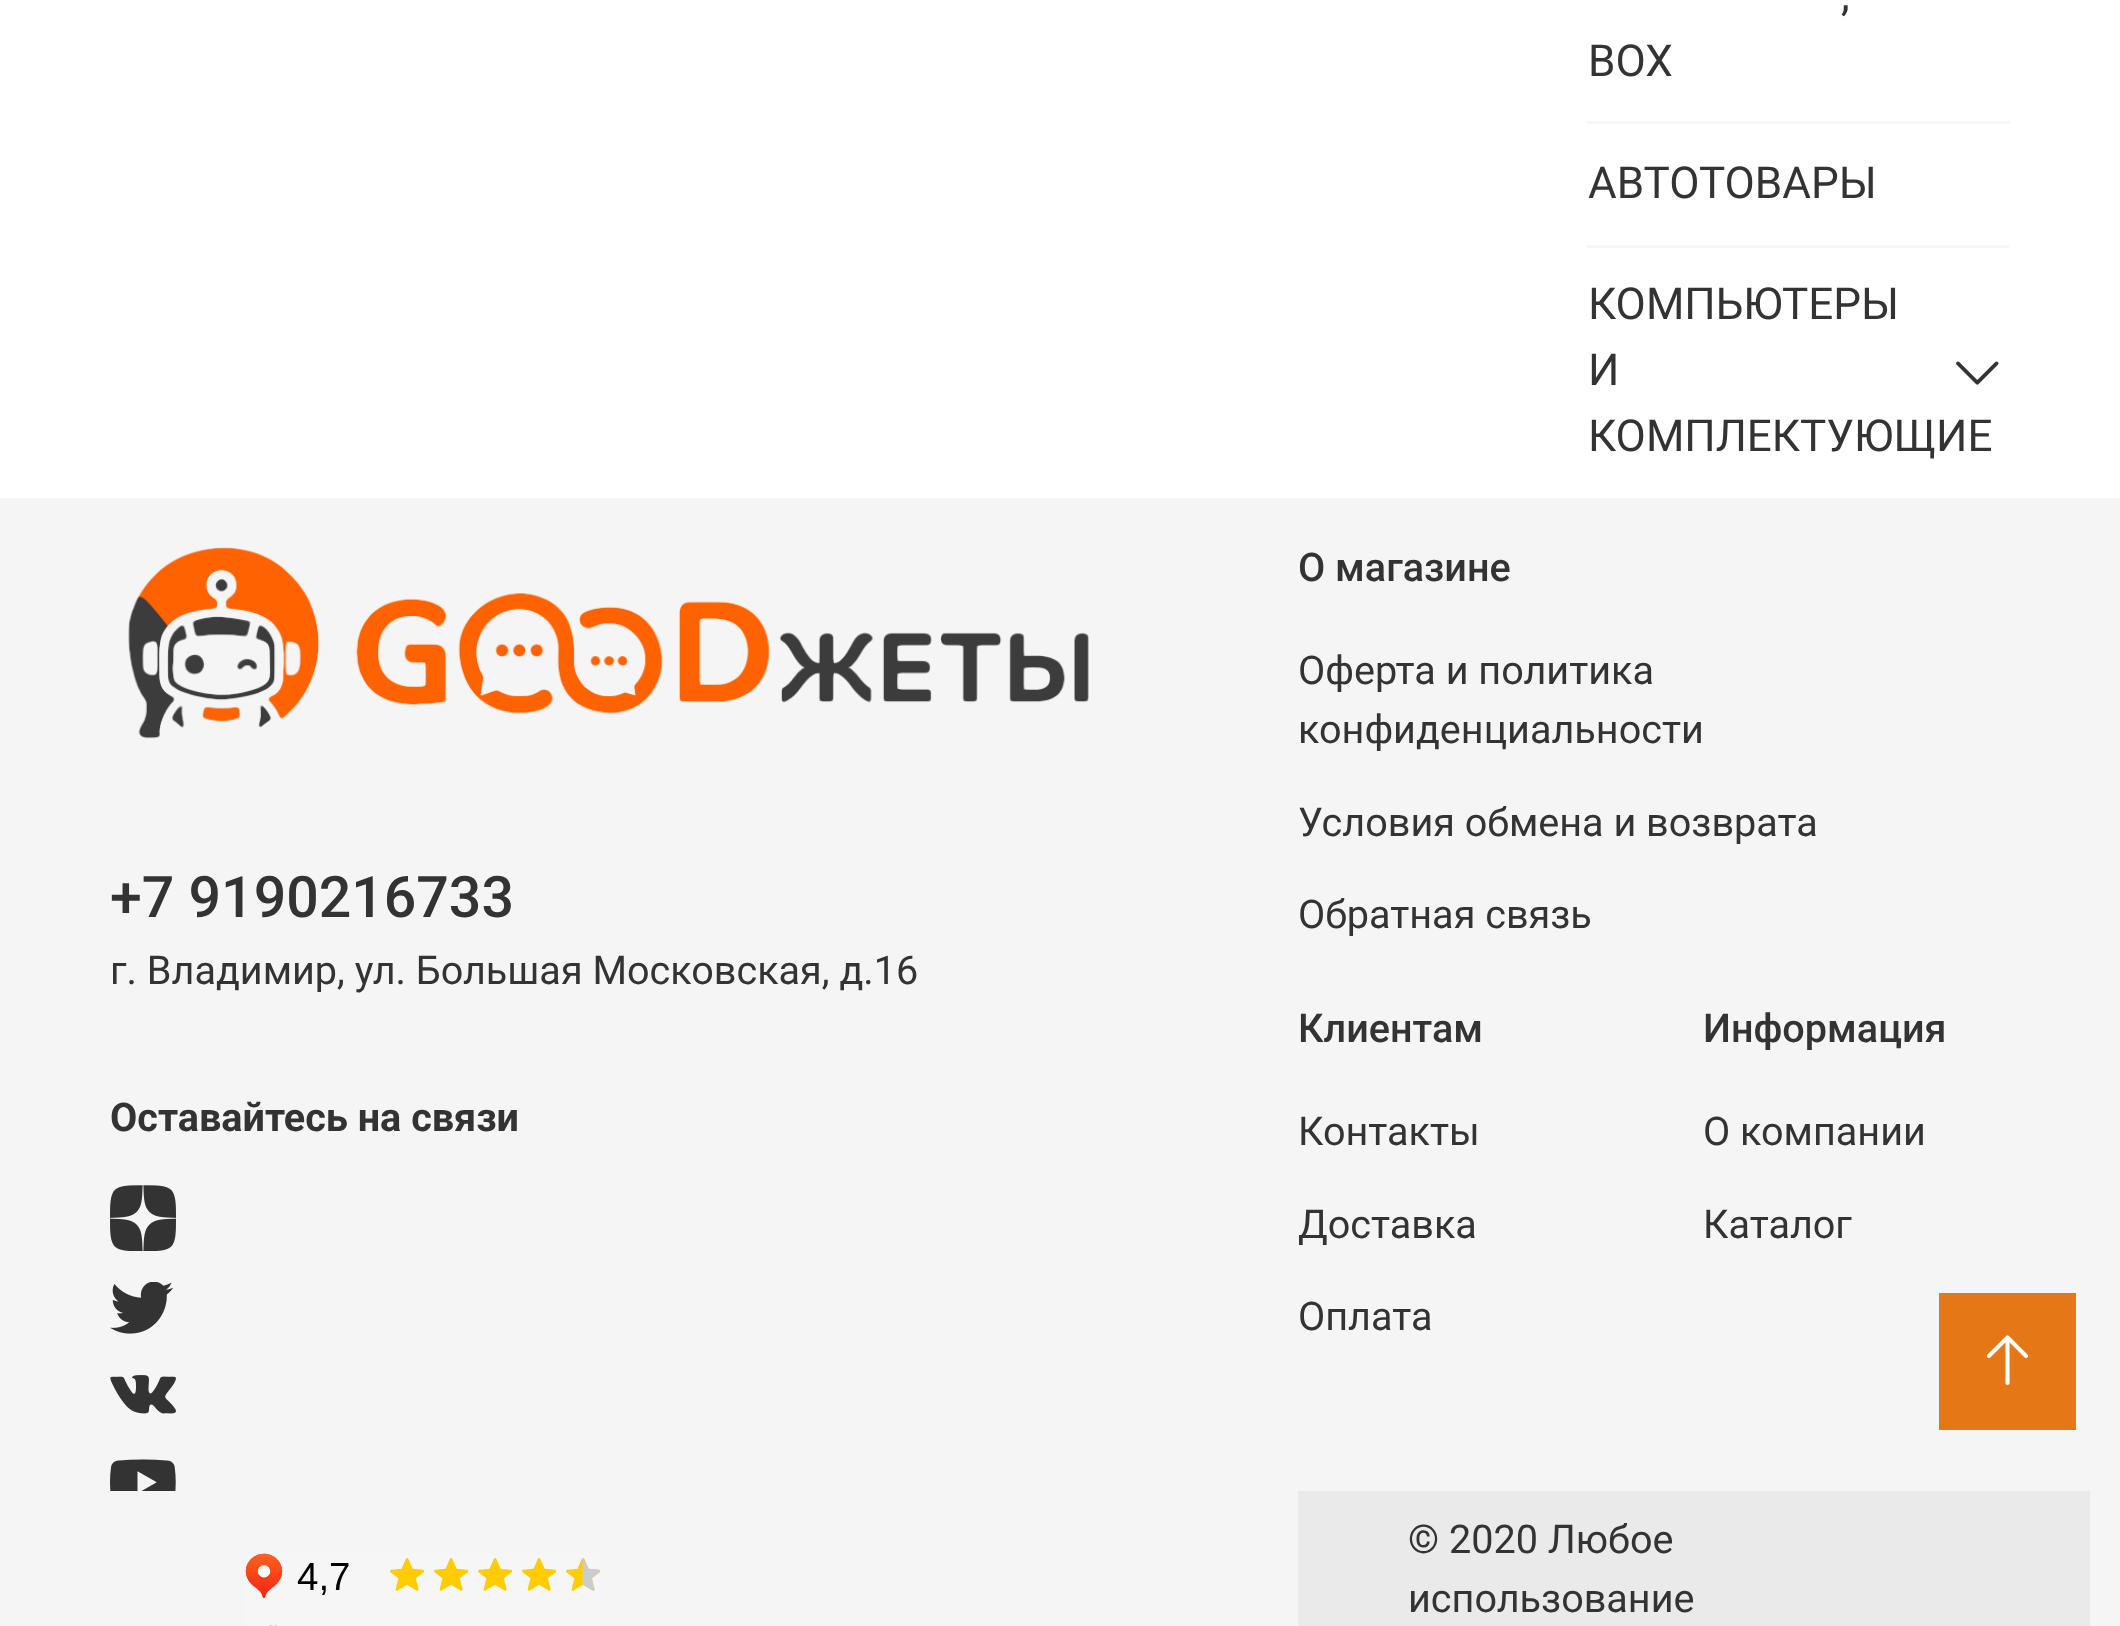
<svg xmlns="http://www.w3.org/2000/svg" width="2120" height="1626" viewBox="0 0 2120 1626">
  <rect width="100%" height="100%" fill="#ffffff"/>
  <rect x="1587" y="121" width="423" height="3" fill="#f7f7f7"/>
  <text x="1841" y="10" font-family="Roboto" font-size="44" fill="#333333">,</text>
  <text x="1588" y="76" font-family="Roboto" font-size="44" fill="#333333">BOX</text>
  <rect x="1587" y="245" width="423" height="3" fill="#f7f7f7"/>
  <text x="1588" y="198" font-family="Roboto" font-size="44" fill="#333333">АВТОТОВАРЫ</text>
  <text x="1588" y="319" font-family="Roboto" font-size="44" fill="#333333">КОМПЬЮТЕРЫ</text>
  <text x="1588" y="385" font-family="Roboto" font-size="44" fill="#333333">И</text>
  <text x="1588" y="451" font-family="Roboto" font-size="44" fill="#333333">КОМПЛЕКТУЮЩИЕ</text>
  <image x="1956" y="361" width="43" height="24" href="img1.png"/>
  <rect x="0" y="498" width="2120" height="1128" fill="#f5f5f6"/>
  <image x="110" y="539" width="990" height="231" href="img2.png"/>
  <text x="110" y="917" font-family="Roboto" font-size="57.25" font-weight="500" fill="#333333">+7 9190216733</text>
  <text x="110" y="984" font-family="Roboto" font-size="39.6" fill="#333333">г. Владимир, ул. Большая Московская, д.16</text>
  <text x="110" y="1131" font-family="Roboto" font-size="39.6" font-weight="bold" fill="#333333">Оставайтесь на связи</text>
  <image x="110" y="1185" width="66" height="66" href="img3.png"/>
  <image x="110" y="1282" width="63" height="52" href="img4.png"/>
  <image x="110" y="1375" width="66" height="39" href="img5.png"/>
  <image x="110" y="1459" width="66" height="32" href="img6.png"/>
  <text x="1298" y="581" font-family="Roboto" font-size="39.6" font-weight="500" fill="#333333">О магазине</text>
  <text x="1298" y="684" font-family="Roboto" font-size="39.6" fill="#333333">Оферта и политика</text>
  <text x="1298" y="743" font-family="Roboto" font-size="39.6" fill="#333333">конфиденциальности</text>
  <text x="1298" y="836" font-family="Roboto" font-size="39.6" fill="#333333">Условия обмена и возврата</text>
  <text x="1298" y="928" font-family="Roboto" font-size="39.6" fill="#333333">Обратная связь</text>
  <text x="1298" y="1042" font-family="Roboto" font-size="39.6" font-weight="500" fill="#333333">Клиентам</text>
  <text x="1298" y="1145" font-family="Roboto" font-size="39.6" fill="#333333">Контакты</text>
  <text x="1298" y="1238" font-family="Roboto" font-size="39.6" fill="#333333">Доставка</text>
  <text x="1298" y="1330" font-family="Roboto" font-size="39.6" fill="#333333">Оплата</text>
  <text x="1703" y="1042" font-family="Roboto" font-size="39.6" font-weight="500" fill="#333333">Информация</text>
  <text x="1703" y="1145" font-family="Roboto" font-size="39.6" fill="#333333">О компании</text>
  <text x="1703" y="1238" font-family="Roboto" font-size="39.6" fill="#333333">Каталог</text>
  <image x="245" y="1553" width="356" height="73" href="img7.png"/>
  <rect x="1298" y="1491" width="792" height="135" fill="#eaeaea"/>
  <text x="1408" y="1553" font-family="Roboto" font-size="39.6" fill="#333333">© 2020 Любое</text>
  <text x="1408" y="1612" font-family="Roboto" font-size="39.6" fill="#333333">использование</text>
  <rect x="1939" y="1293" width="137" height="137" fill="#e57716"/>
  <image x="1986" y="1335" width="43" height="50" href="img8.png"/>
</svg>
